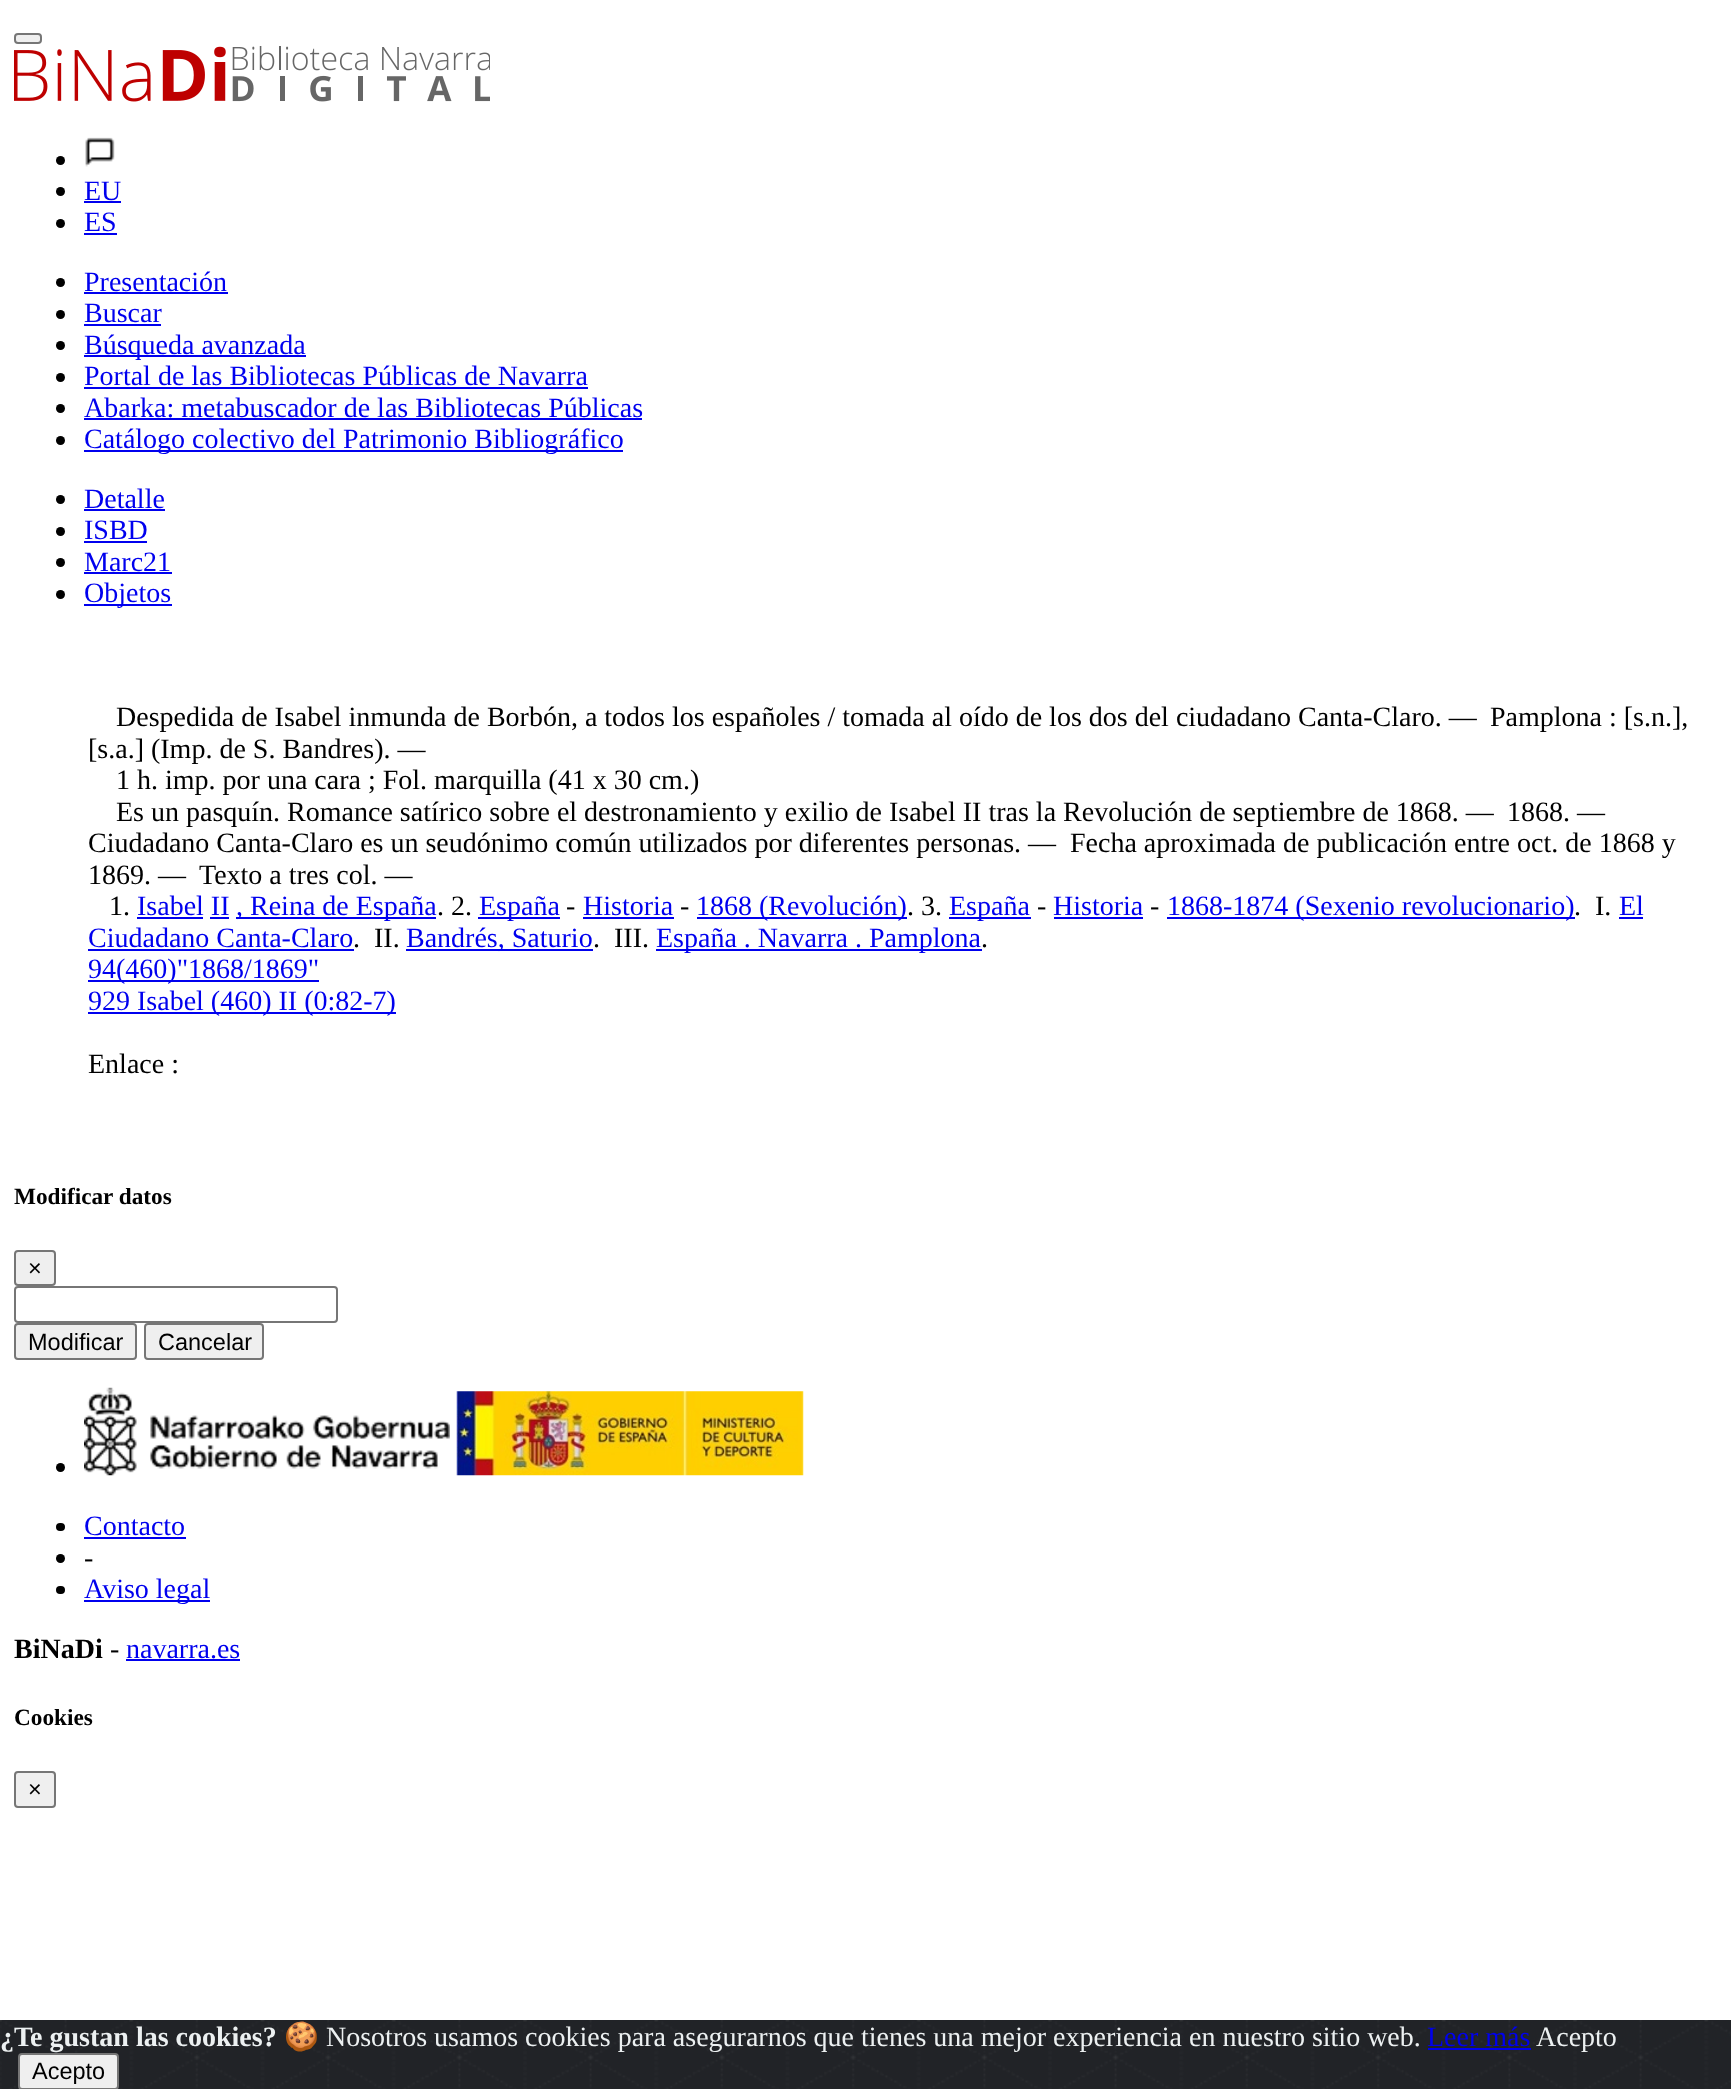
<svg xmlns="http://www.w3.org/2000/svg" width="1731" height="2089" viewBox="0 0 1731 2089">
  <rect width="100%" height="100%" fill="#ffffff"/>
  <rect x="15" y="34" width="26" height="9" rx="3" fill="#efefef" stroke="#767676" stroke-width="2"/>
  <image x="14" y="46" width="476" height="56" href="img1.png"/>
  <circle cx="60.5" cy="160.5" r="4.5" fill="#000000"/>
  <image x="85" y="137" width="30" height="30" href="img2.png"/>
  <circle cx="60.5" cy="191.5" r="4.5" fill="#000000"/>
  <text x="84" y="200" font-family="Liberation Serif" font-size="28" fill="#0000ee">EU</text>
  <rect x="84" y="201" width="37" height="2" fill="#0000ee"/>
  <circle cx="60.5" cy="223.5" r="4.5" fill="#000000"/>
  <text x="84" y="231" font-family="Liberation Serif" font-size="28" fill="#0000ee">ES</text>
  <rect x="84" y="233" width="33" height="2" fill="#0000ee"/>
  <circle cx="60.5" cy="282.5" r="4.5" fill="#000000"/>
  <text x="84" y="291" font-family="Liberation Serif" font-size="28" fill="#0000ee">Presentación</text>
  <rect x="84" y="292" width="144" height="2" fill="#0000ee"/>
  <circle cx="60.5" cy="314.5" r="4.5" fill="#000000"/>
  <text x="84" y="322" font-family="Liberation Serif" font-size="28" fill="#0000ee">Buscar</text>
  <rect x="84" y="324" width="77" height="2" fill="#0000ee"/>
  <circle cx="60.5" cy="345.5" r="4.5" fill="#000000"/>
  <rect x="84" y="355" width="222" height="2" fill="#0000ee"/>
  <text x="84" y="354" font-family="Liberation Serif" font-size="28" fill="#0000ee">Búsqueda avanzada</text>
  <circle cx="60.5" cy="377.5" r="4.5" fill="#000000"/>
  <text x="84" y="385" font-family="Liberation Serif" font-size="28" fill="#0000ee">Portal de las Bibliotecas Públicas de Navarra</text>
  <rect x="84" y="387" width="504" height="2" fill="#0000ee"/>
  <circle cx="60.5" cy="408.5" r="4.5" fill="#000000"/>
  <text x="84" y="417" font-family="Liberation Serif" font-size="28" fill="#0000ee">Abarka: metabuscador de las Bibliotecas Públicas</text>
  <rect x="84" y="418" width="558" height="2" fill="#0000ee"/>
  <circle cx="60.5" cy="440.5" r="4.5" fill="#000000"/>
  <rect x="84" y="450" width="539" height="2" fill="#0000ee"/>
  <text x="84" y="448" font-family="Liberation Serif" font-size="28" fill="#0000ee">Catálogo colectivo del Patrimonio Bibliográfico</text>
  <circle cx="60.5" cy="499.5" r="4.5" fill="#000000"/>
  <text x="84" y="508" font-family="Liberation Serif" font-size="28" fill="#0000ee">Detalle</text>
  <rect x="84" y="509" width="81" height="2" fill="#0000ee"/>
  <circle cx="60.5" cy="531.5" r="4.5" fill="#000000"/>
  <text x="84" y="539" font-family="Liberation Serif" font-size="28" fill="#0000ee">ISBD</text>
  <rect x="84" y="541" width="63" height="2" fill="#0000ee"/>
  <circle cx="60.5" cy="562.5" r="4.5" fill="#000000"/>
  <text x="84" y="571" font-family="Liberation Serif" font-size="28" fill="#0000ee">Marc21</text>
  <rect x="84" y="572" width="88" height="2" fill="#0000ee"/>
  <circle cx="60.5" cy="594.5" r="4.5" fill="#000000"/>
  <rect x="84" y="604" width="88" height="2" fill="#0000ee"/>
  <text x="84" y="602" font-family="Liberation Serif" font-size="28" fill="#0000ee">Objetos</text>
  <text x="116" y="726" font-family="Liberation Serif" font-size="28" fill="#000000">Despedida de Isabel inmunda de Borbón, a todos los españoles / tomada al oído de los dos del ciudadano Canta-Claro. —</text>
  <text x="1490" y="726" font-family="Liberation Serif" font-size="28" fill="#000000">Pamplona : [s.n.],</text>
  <text x="88" y="758" font-family="Liberation Serif" font-size="28" fill="#000000">[s.a.] (Imp. de S. Bandres). —</text>
  <text x="116" y="789" font-family="Liberation Serif" font-size="28" fill="#000000">1 h. imp. por una cara ; Fol. marquilla (41 x 30 cm.)</text>
  <text x="116" y="821" font-family="Liberation Serif" font-size="28" fill="#000000">Es un pasquín. Romance satírico sobre el destronamiento y exilio de Isabel II tras la Revolución de septiembre de 1868. —</text>
  <text x="1507" y="821" font-family="Liberation Serif" font-size="28" fill="#000000">1868. —</text>
  <text x="88" y="852" font-family="Liberation Serif" font-size="28" fill="#000000">Ciudadano Canta-Claro es un seudónimo común utilizados por diferentes personas. —</text>
  <text x="1070" y="852" font-family="Liberation Serif" font-size="28" fill="#000000">Fecha aproximada de publicación entre oct. de 1868 y</text>
  <text x="88" y="884" font-family="Liberation Serif" font-size="28" fill="#000000">1869. —</text>
  <text x="199" y="884" font-family="Liberation Serif" font-size="28" fill="#000000">Texto a tres col. —</text>
  <text x="109" y="915" font-family="Liberation Serif" font-size="28" fill="#000000">1.</text>
  <text x="137" y="915" font-family="Liberation Serif" font-size="28" fill="#0000ee">Isabel II</text>
  <rect x="137" y="917" width="66" height="2" fill="#0000ee"/>
  <rect x="236" y="917" width="200" height="2" fill="#0000ee"/>
  <text x="236" y="915" font-family="Liberation Serif" font-size="28" fill="#0000ee">, Reina de España</text>
  <text x="437" y="915" font-family="Liberation Serif" font-size="28" fill="#000000">. 2.</text>
  <rect x="478" y="917" width="82" height="2" fill="#0000ee"/>
  <text x="479" y="915" font-family="Liberation Serif" font-size="28" fill="#0000ee">España</text>
  <text x="566" y="915" font-family="Liberation Serif" font-size="28" fill="#000000">-</text>
  <text x="583" y="915" font-family="Liberation Serif" font-size="28" fill="#0000ee">Historia</text>
  <rect x="583" y="917" width="91" height="2" fill="#0000ee"/>
  <text x="680" y="915" font-family="Liberation Serif" font-size="28" fill="#000000">-</text>
  <rect x="697" y="917" width="210" height="2" fill="#0000ee"/>
  <text x="696" y="915" font-family="Liberation Serif" font-size="28" fill="#0000ee">1868 (Revolución)</text>
  <text x="907" y="915" font-family="Liberation Serif" font-size="28" fill="#000000">. 3.</text>
  <rect x="949" y="917" width="82" height="2" fill="#0000ee"/>
  <text x="949" y="915" font-family="Liberation Serif" font-size="28" fill="#0000ee">España</text>
  <text x="1037" y="915" font-family="Liberation Serif" font-size="28" fill="#000000">-</text>
  <text x="1053" y="915" font-family="Liberation Serif" font-size="28" fill="#0000ee">Historia</text>
  <rect x="1054" y="917" width="89" height="2" fill="#0000ee"/>
  <text x="1150" y="915" font-family="Liberation Serif" font-size="28" fill="#000000">-</text>
  <rect x="1167" y="917" width="408" height="2" fill="#0000ee"/>
  <text x="1167" y="915" font-family="Liberation Serif" font-size="28" fill="#0000ee">1868-1874 (Sexenio revolucionario)</text>
  <text x="1574" y="915" font-family="Liberation Serif" font-size="28" fill="#000000" xml:space="preserve">.  I.</text>
  <text x="1619" y="915" font-family="Liberation Serif" font-size="28" fill="#0000ee">El</text>
  <rect x="1619" y="917" width="24" height="2" fill="#0000ee"/>
  <rect x="210" y="917" width="19" height="2" fill="#0000ee"/>
  <text x="88" y="947" font-family="Liberation Serif" font-size="28" fill="#0000ee">Ciudadano Canta-Claro</text>
  <rect x="88" y="949" width="266" height="2" fill="#0000ee"/>
  <text x="353" y="947" font-family="Liberation Serif" font-size="28" fill="#000000" xml:space="preserve">.  II.</text>
  <rect x="406" y="949" width="187" height="2" fill="#0000ee"/>
  <text x="406" y="947" font-family="Liberation Serif" font-size="28" fill="#0000ee">Bandrés, Saturio</text>
  <text x="593" y="947" font-family="Liberation Serif" font-size="28" fill="#000000" xml:space="preserve">.  III.</text>
  <rect x="656" y="949" width="326" height="2" fill="#0000ee"/>
  <text x="656" y="947" font-family="Liberation Serif" font-size="28" fill="#0000ee">España . Navarra . Pamplona</text>
  <text x="981" y="947" font-family="Liberation Serif" font-size="28" fill="#000000">.</text>
  <rect x="88" y="980" width="231" height="2" fill="#0000ee"/>
  <text x="88" y="978" font-family="Liberation Serif" font-size="28" fill="#0000ee">94(460)"1868/1869"</text>
  <rect x="88" y="1012" width="308" height="2" fill="#0000ee"/>
  <text x="88" y="1010" font-family="Liberation Serif" font-size="28" fill="#0000ee">929 Isabel (460) II (0:82-7)</text>
  <text x="88" y="1073" font-family="Liberation Serif" font-size="28" fill="#000000">Enlace :</text>
  <text x="14" y="1204" font-family="Liberation Serif" font-size="23.25" font-weight="bold" fill="#000000">Modificar datos</text>
  <rect x="15" y="1251" width="40" height="34" rx="3" fill="#efefef" stroke="#767676" stroke-width="2"/>
  <text x="28" y="1276" font-family="Liberation Sans" font-size="23.5" fill="#000000">×</text>
  <rect x="15" y="1287" width="322" height="35" rx="3" fill="none" stroke="#767676" stroke-width="2"/>
  <rect x="15" y="1324" width="121" height="35" rx="3" fill="#efefef" stroke="#767676" stroke-width="2"/>
  <text x="28" y="1350" font-family="Liberation Sans" font-size="23.5" fill="#000000">Modificar</text>
  <rect x="145" y="1324" width="118" height="35" rx="3" fill="#efefef" stroke="#767676" stroke-width="2"/>
  <text x="158" y="1350" font-family="Liberation Sans" font-size="23.5" fill="#000000">Cancelar</text>
  <circle cx="60.5" cy="1467.5" r="4.5" fill="#000000"/>
  <image x="84" y="1387" width="366" height="89" href="img3.png"/>
  <image x="456" y="1391" width="348" height="85" href="img4.png"/>
  <rect x="56" y="1523" width="9" height="8" rx="4" fill="#000000"/>
  <text x="84" y="1535" font-family="Liberation Serif" font-size="28" fill="#0000ee">Contacto</text>
  <rect x="84" y="1537" width="102" height="2" fill="#0000ee"/>
  <circle cx="60.5" cy="1558.5" r="4.5" fill="#000000"/>
  <text x="84" y="1567" font-family="Liberation Serif" font-size="28" fill="#000000">-</text>
  <rect x="56" y="1586" width="9" height="8" rx="4" fill="#000000"/>
  <rect x="84" y="1600" width="126" height="2" fill="#0000ee"/>
  <text x="84" y="1598" font-family="Liberation Serif" font-size="28" fill="#0000ee">Aviso legal</text>
  <text x="14" y="1658" font-family="Liberation Serif" font-size="28" font-weight="bold" fill="#000000">BiNaDi</text>
  <text x="110" y="1658" font-family="Liberation Serif" font-size="28" fill="#000000">-</text>
  <text x="126" y="1658" font-family="Liberation Serif" font-size="28" fill="#0000ee">navarra.es</text>
  <rect x="126" y="1659" width="114" height="2" fill="#0000ee"/>
  <text x="14" y="1725" font-family="Liberation Serif" font-size="23.25" font-weight="bold" fill="#000000">Cookies</text>
  <rect x="15" y="1772" width="40" height="35" rx="3" fill="#efefef" stroke="#767676" stroke-width="2"/>
  <text x="28" y="1797" font-family="Liberation Sans" font-size="23.5" fill="#000000">×</text>
  <image x="0" y="2020" width="1731" height="69" href="img5.png"/>
  <text x="0" y="2046" font-family="Liberation Serif" font-size="28" font-weight="bold" fill="#ecf0f1">¿Te gustan las cookies?</text>
  <text x="284" y="2046" font-family="Noto Color Emoji" font-size="28" fill="#ecf0f1">🍪</text>
  <text x="326" y="2046" font-family="Liberation Serif" font-size="28" fill="#ecf0f1">Nosotros usamos cookies para asegurarnos que tienes una mejor experiencia en nuestro sitio web.</text>
  <text x="1427" y="2046" font-family="Liberation Serif" font-size="28" fill="#0000ee">Leer más</text>
  <rect x="1428" y="2048" width="103" height="2" fill="#0000ee"/>
  <text x="1536" y="2046" font-family="Liberation Serif" font-size="28" fill="#ecf0f1">Acepto</text>
  <rect x="19" y="2054" width="99" height="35" rx="3" fill="#efefef" stroke="#767676" stroke-width="2"/>
  <text x="32" y="2079" font-family="Liberation Sans" font-size="23.5" fill="#000000">Acepto</text>
</svg>
